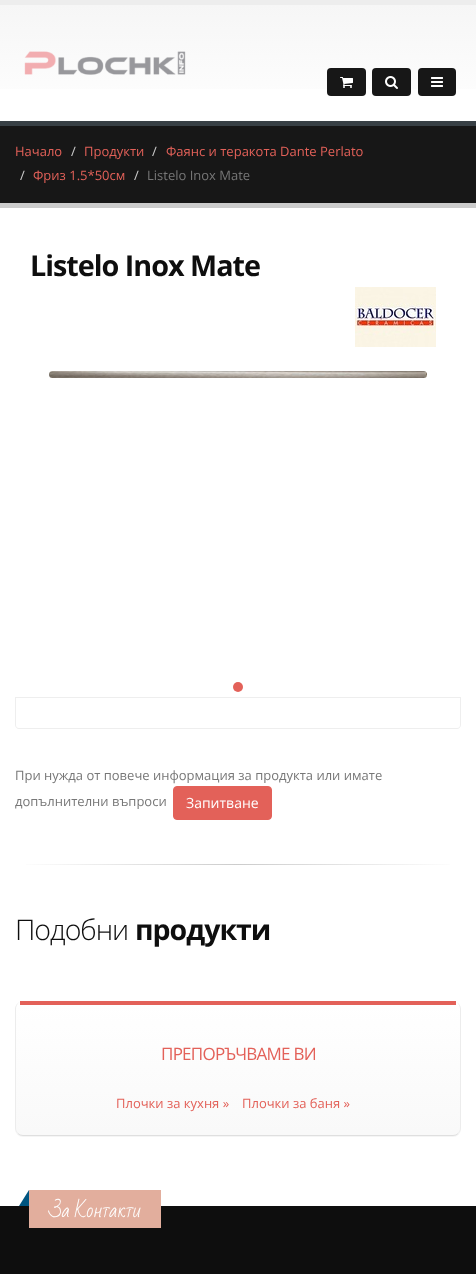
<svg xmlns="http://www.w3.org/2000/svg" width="476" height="1274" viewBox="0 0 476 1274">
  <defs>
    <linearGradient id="g1" gradientUnits="userSpaceOnUse" x1="238" y1="5" x2="238" y2="121"><stop offset="0" stop-color="#f6f6f6"/><stop offset="1" stop-color="#ffffff"/></linearGradient>
    <linearGradient id="g2" gradientUnits="userSpaceOnUse" x1="15" y1="865" x2="461" y2="865"><stop offset="0" stop-color="#ffffff"/><stop offset="0.5" stop-color="#cccccc"/><stop offset="1" stop-color="#ffffff"/></linearGradient>
    <filter id="blur1" x="-50%" y="-200%" width="200%" height="500%"><feGaussianBlur stdDeviation="0.5"/></filter>
    <clipPath id="clip1"><rect x="15" y="1001" width="446" height="135" rx="8"/></clipPath>
    <linearGradient id="g3" gradientUnits="userSpaceOnUse" x1="238" y1="1001" x2="238" y2="1135"><stop offset="0.01" stop-color="#ffffff"/><stop offset="0.98" stop-color="#f9f9f9"/></linearGradient>
  </defs>
  <rect width="100%" height="100%" fill="#ffffff"/>
  <rect x="0" y="5" width="476" height="84" fill="url(#g1)"/>
  <rect x="0" y="0" width="476" height="5" fill="#ededed"/>
  <image x="24" y="51" width="162" height="24" href="img1.png"/>
  <rect x="327" y="68" width="39" height="28" rx="4" fill="#171717"/>
  <image x="340" y="77" width="13" height="11" href="img2.png"/>
  <rect x="372" y="68" width="39" height="28" rx="4" fill="#171717"/>
  <image x="385" y="76" width="13" height="13" href="img3.png"/>
  <rect x="418" y="68" width="38" height="28" rx="4" fill="#171717"/>
  <image x="431" y="77" width="12" height="10" href="img4.png"/>
  <rect x="0" y="126" width="476" height="77" fill="#171717"/>
  <rect x="0" y="121" width="476" height="5" fill="#384045"/>
  <rect x="0" y="203" width="476" height="5" fill="#cccccc"/>
  <text x="15" y="156" font-family="Open Sans" font-size="13" fill="#e36159">Начало</text>
  <text x="71" y="156" font-family="Open Sans" font-size="13" fill="#cccccc">/</text>
  <text x="84" y="156" font-family="Open Sans" font-size="13" fill="#e36159">Продукти</text>
  <text x="152" y="156" font-family="Open Sans" font-size="13" fill="#cccccc">/</text>
  <text x="166" y="156" font-family="Open Sans" font-size="13" fill="#e36159">Фаянс и теракота Dante Perlato</text>
  <text x="20" y="180" font-family="Open Sans" font-size="13" fill="#cccccc">/</text>
  <text x="33" y="180" font-family="Open Sans" font-size="13" fill="#e36159">Фриз 1.5*50см</text>
  <text x="134" y="180" font-family="Open Sans" font-size="13" fill="#cccccc">/</text>
  <text x="147" y="180" font-family="Open Sans" font-size="13" fill="#777777">Listelo Inox Mate</text>
  <text x="30" y="276" font-family="Open Sans" font-size="28.75" font-weight="bold" letter-spacing="-1" fill="#0e0e0e">Listelo Inox Mate</text>
  <image x="355" y="287" width="81" height="60" href="img5.png"/>
  <image x="49" y="371" width="378" height="7" href="img6.png"/>
  <circle cx="238" cy="687" r="5" fill="#e36159"/>
  <rect x="15" y="697" width="446" height="1" fill="#eeeeee"/>
  <path d="M15 698H461V725C461 727 459 729 457 729H19C17 729 15 727 15 725ZM16 698H460V725C460 727 459 728 457 728H19C17 728 16 727 16 725Z" fill="#eeeeee" fill-rule="evenodd"/>
  <text x="15" y="780" font-family="Open Sans" font-size="13" fill="#777777">При нужда от повече информация за продукта или имате</text>
  <text x="15" y="806" font-family="Open Sans" font-size="13" fill="#777777">допълнителни въпроси</text>
  <rect x="173.5" y="786.5" width="98" height="33" rx="3.5" fill="#e36159" stroke="#e36159"/>
  <text x="186" y="808" font-family="Open Sans" font-size="14" fill="#ffffff">Запитване</text>
  <rect x="26" y="864" width="424" height="1" fill="url(#g2)"/>
  <text x="15" y="940" font-family="Open Sans" font-size="28.5" font-weight="300" letter-spacing="-1" fill="#0e0e0e">Подобни</text>
  <text x="135" y="940" font-family="Open Sans" font-size="28.5" font-weight="bold" letter-spacing="-1" fill="#0e0e0e">продукти</text>
  <rect x="15" y="1002" width="446" height="135" rx="8" fill="#000000" fill-opacity="0.04" filter="url(#blur1)"/>
  <g clip-path="url(#clip1)">
    <path d="M23 1001H453C457.5 1001 461 1004.5 461 1009V1135H15V1009C15 1004.5 18.5 1001 23 1001Z" fill="url(#g3)"/>
  </g>
  <path d="M461 1009C461 1005 457 1001 453 1001C457 1001 460 1005 460 1009V1128C460 1130 459 1132 458 1133V1134C460 1132 461 1130 461 1128Z" fill="#ececec"/>
  <path d="M23 1136H453C455 1136 457 1135 458 1134V1133C457 1134 455 1135 453 1135H23C21 1135 19 1134 18 1133V1134C19 1135 21 1136 23 1136Z" fill="#dfdfdf"/>
  <path d="M15 1009V1128C15 1130 16 1132 18 1134V1133C17 1132 16 1130 16 1128V1009C16 1005 19 1001 23 1001C19 1001 15 1005 15 1009Z" fill="#ececec"/>
  <rect x="20" y="1001" width="436" height="4" fill="#e36159"/>
  <text x="161" y="1060" font-family="Open Sans" font-size="17" letter-spacing="-0.75" fill="#e36159">ПРЕПОРЪЧВАМЕ ВИ</text>
  <text x="116" y="1108" font-family="Open Sans" font-size="13" fill="#e36159">Плочки за кухня »</text>
  <text x="242" y="1108" font-family="Open Sans" font-size="13" fill="#e36159">Плочки за баня »</text>
  <rect x="0" y="1206" width="476" height="68" fill="#0e0e0e"/>
  <rect x="29" y="1190" width="132" height="38" fill="#e2ae9d"/>
  <path d="M29 1190V1206H19Z" fill="#005580"/>
  <text x="49" y="1217" font-family="Bad Script" font-size="18.75" fill="#ffffff">За Контакти</text>
</svg>
